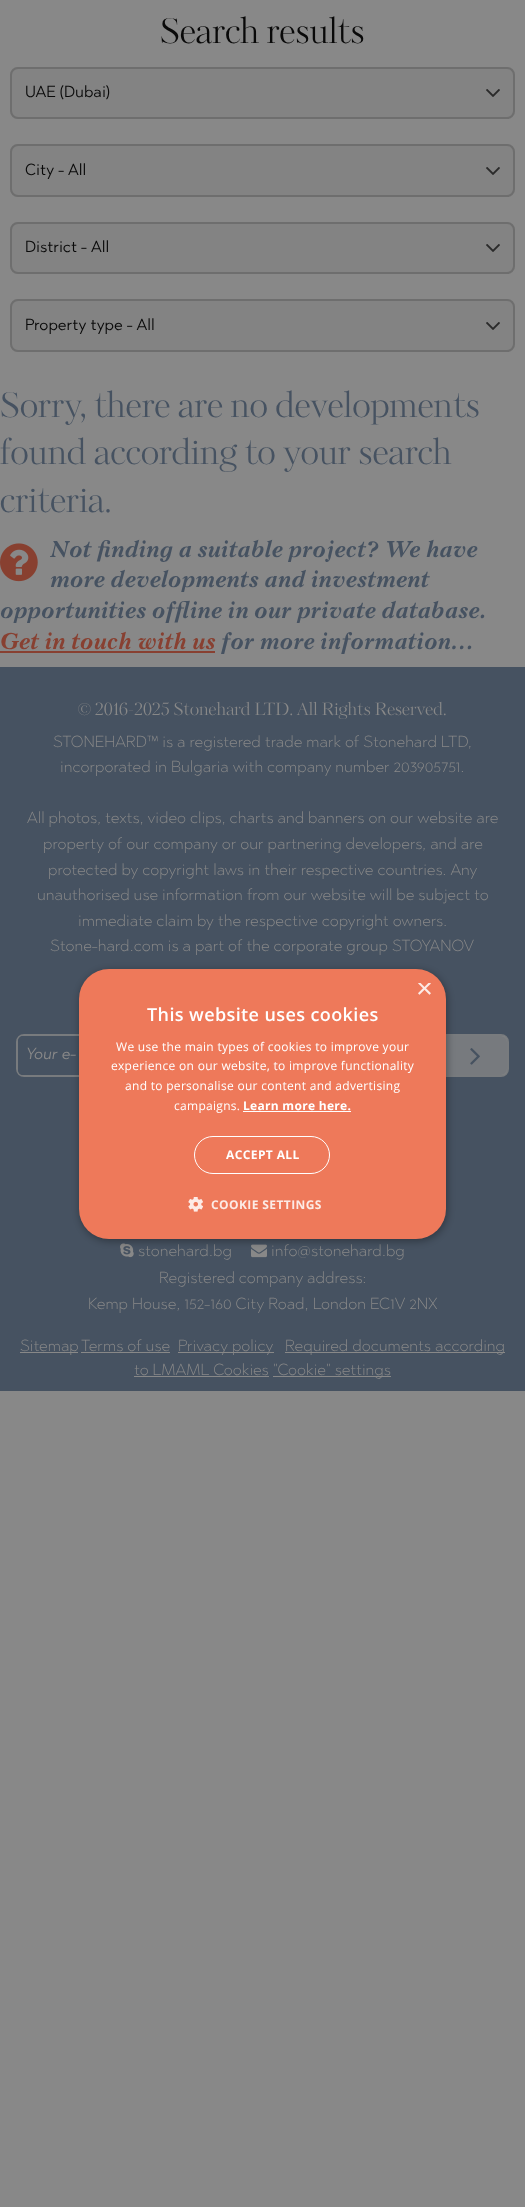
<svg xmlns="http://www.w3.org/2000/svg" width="525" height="2207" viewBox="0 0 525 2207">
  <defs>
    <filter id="blur1" x="-50%" y="-200%" width="200%" height="500%"><feGaussianBlur stdDeviation="4"/></filter>
    <clipPath id="clip1"><rect x="416" y="983" width="15" height="15"/></clipPath>
  </defs>
  <rect width="100%" height="100%" fill="#888888"/>
  <text x="160" y="43" font-family="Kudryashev" font-size="34" fill="#090909">Search results</text>
  <rect x="10" y="67" width="505" height="52" rx="8" fill="#838383"/>
  <image x="486" y="89" width="14" height="8" href="img1.png"/>
  <rect x="11" y="68" width="503" height="50" rx="7" fill="none" stroke="#6e6e6e" stroke-width="2"/>
  <text x="25" y="97" font-family="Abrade" font-size="16" fill="#090909">UAE (Dubai)</text>
  <rect x="10" y="144" width="505" height="53" rx="8" fill="#838383"/>
  <image x="486" y="167" width="14" height="8" href="img1.png"/>
  <rect x="11" y="145" width="503" height="51" rx="7" fill="none" stroke="#6e6e6e" stroke-width="2"/>
  <text x="25" y="175" font-family="Abrade" font-size="16" fill="#090909">City - All</text>
  <rect x="10" y="222" width="505" height="52" rx="8" fill="#838383"/>
  <image x="486" y="244" width="14" height="8" href="img1.png"/>
  <rect x="11" y="223" width="503" height="50" rx="7" fill="none" stroke="#6e6e6e" stroke-width="2"/>
  <text x="25" y="252" font-family="Abrade" font-size="16" fill="#090909">District - All</text>
  <rect x="10" y="299" width="505" height="53" rx="8" fill="#838383"/>
  <image x="486" y="322" width="14" height="8" href="img1.png"/>
  <rect x="11" y="300" width="503" height="51" rx="7" fill="none" stroke="#6e6e6e" stroke-width="2"/>
  <text x="25" y="330" font-family="Abrade" font-size="16" fill="#090909">Property type - All</text>
  <text x="0" y="417" font-family="Kudryashev" font-size="34" fill="#465261">Sorry, there are no developments</text>
  <text x="0" y="464" font-family="Kudryashev" font-size="34" fill="#465261">found according to your search</text>
  <text x="0" y="512" font-family="Kudryashev" font-size="34" fill="#465261">criteria.</text>
  <image x="0" y="543" width="38" height="39" href="img2.png"/>
  <text x="50" y="557" font-family="Kudryashev" font-size="22" font-style="italic" fill="#465261">Not finding a suitable project? We have</text>
  <text x="50" y="587" font-family="Kudryashev" font-size="22" font-style="italic" fill="#465261">more developments and investment</text>
  <text x="0" y="618" font-family="Kudryashev" font-size="22" font-style="italic" fill="#465261">opportunities offline in our private database.</text>
  <text x="0" y="649" font-family="Kudryashev" font-size="22" font-style="italic" fill="#884031">Get in touch with us</text>
  <rect x="0" y="651" width="215" height="2" fill="#884031"/>
  <text x="221" y="649" font-family="Kudryashev" font-size="22" font-style="italic" fill="#465261">for more information...</text>
  <rect x="0" y="667" width="525" height="724" fill="#465261"/>
  <text x="78" y="715" font-family="Kudryashev" font-size="17" fill="#888888">© 2016-2025 Stonehard LTD. All Rights Reserved.</text>
  <text x="53" y="747" font-family="Abrade" font-size="16" font-weight="300" fill="#888888">STONEHARD™ is a registered trade mark of Stonehard LTD,</text>
  <text x="60" y="772" font-family="Abrade" font-size="16" font-weight="300" fill="#888888">incorporated in Bulgaria with company number 203905751.</text>
  <text x="27" y="823" font-family="Abrade" font-size="16" font-weight="300" fill="#888888">All photos, texts, video clips, charts and banners on our website are</text>
  <text x="43" y="849" font-family="Abrade" font-size="16" font-weight="300" fill="#888888">property of our company or our partnering developers, and are</text>
  <text x="48" y="875" font-family="Abrade" font-size="16" font-weight="300" fill="#888888">protected by copyright laws in their respective countries. Any</text>
  <text x="37" y="900" font-family="Abrade" font-size="16" font-weight="300" fill="#888888">unauthorised use information from our website will be subject to</text>
  <text x="78" y="926" font-family="Abrade" font-size="16" font-weight="300" fill="#888888">immediate claim by the respective copyright owners.</text>
  <text x="50" y="951" font-family="Abrade" font-size="16" font-weight="300" fill="#888888">Stone-hard.com is a part of the corporate group STOYANOV</text>
  <rect x="17" y="1035" width="491" height="41" rx="7" fill="none" stroke="#787b7e" stroke-width="2"/>
  <path d="M23 1036H445V1075H23C20 1075 18 1073 18 1070V1041C18 1038 20 1036 23 1036Z" fill="#465261"/>
  <text x="26" y="1059" font-family="Abrade" font-size="16" font-style="italic" fill="#888888">Your e-</text>
  <path d="M445 1036H502C505 1036 507 1038 507 1041V1070C507 1073 505 1075 502 1075H445Z" fill="#888888" fill-opacity="0.75"/>
  <image x="470" y="1048" width="10" height="17" href="img3.png"/>
  <image x="120" y="1243" width="14" height="15" href="img4.png"/>
  <text x="138" y="1256" font-family="Abrade" font-size="16" font-weight="300" fill="#888888">stonehard.bg</text>
  <image x="251" y="1244" width="16" height="14" href="img5.png"/>
  <text x="271" y="1256" font-family="Abrade" font-size="16" font-weight="300" fill="#888888">info@stonehard.bg</text>
  <text x="159" y="1283" font-family="Abrade" font-size="16" font-weight="300" fill="#888888">Registered company address:</text>
  <text x="88" y="1309" font-family="Abrade" font-size="16" font-weight="300" fill="#888888">Kemp House, 152-160 City Road, London EC1V 2NX</text>
  <rect x="20" y="1352" width="58" height="1" fill="#888888"/>
  <text x="20" y="1351" font-family="Abrade" font-size="16" font-weight="300" fill="#888888">Sitemap</text>
  <text x="81" y="1351" font-family="Abrade" font-size="16" font-weight="300" fill="#888888">Terms of use</text>
  <rect x="81" y="1352" width="89" height="1" fill="#888888"/>
  <rect x="178" y="1352" width="96" height="1" fill="#888888"/>
  <text x="178" y="1351" font-family="Abrade" font-size="16" font-weight="300" fill="#888888">Privacy policy</text>
  <rect x="285" y="1352" width="220" height="1" fill="#888888"/>
  <text x="285" y="1351" font-family="Abrade" font-size="16" font-weight="300" fill="#888888">Required documents according</text>
  <text x="134" y="1375" font-family="Abrade" font-size="16" font-weight="300" fill="#888888">to LMAML Cookies</text>
  <rect x="134" y="1376" width="135" height="1" fill="#888888"/>
  <rect x="273" y="1376" width="118" height="1" fill="#888888"/>
  <text x="273" y="1375" font-family="Abrade" font-size="16" font-weight="300" fill="#888888">"Cookie" settings</text>
  <rect x="80" y="971" width="367" height="270" rx="30" fill="#000000" fill-opacity="0.35" filter="url(#blur1)"/>
  <rect x="79" y="969" width="367" height="270" rx="30" fill="#ee795a"/>
  <g clip-path="url(#clip1)">
    <text x="416" y="998" font-family="Liberation Sans" font-size="29" fill="#fcebe6">×</text>
  </g>
  <text x="147" y="1021" font-family="Open Sans" font-size="18" font-weight="600" letter-spacing="0.4" fill="#ffffff">This website uses cookies</text>
  <text x="116" y="1051" font-family="Open Sans" font-size="12" letter-spacing="0.3" fill="#ffffff">We use the main types of cookies to improve your</text>
  <text x="111" y="1070" font-family="Open Sans" font-size="12" letter-spacing="0.3" fill="#ffffff">experience on our website, to improve functionality</text>
  <text x="125" y="1090" font-family="Open Sans" font-size="12" letter-spacing="0.3" fill="#ffffff">and to personalise our content and advertising</text>
  <text x="174" y="1110" font-family="Open Sans" font-size="12" letter-spacing="0.3" fill="#ffffff">campaigns.</text>
  <text x="243" y="1110" font-family="Open Sans" font-size="12" font-weight="bold" letter-spacing="0.3" fill="#ffffff">Learn more here.</text>
  <rect x="243" y="1111" width="108" height="1" fill="#ffffff"/>
  <rect x="194.5" y="1136.5" width="135" height="37" rx="18.5" fill="none" stroke="#ffffff"/>
  <text x="226" y="1159" font-family="Open Sans" font-size="12" font-weight="bold" letter-spacing="0.4" fill="#ffffff">ACCEPT ALL</text>
  <image x="188" y="1197" width="15" height="15" href="img6.png"/>
  <text x="211" y="1209" font-family="Open Sans" font-size="12" font-weight="bold" letter-spacing="0.4" fill="#fcebe6">COOKIE SETTINGS</text>
</svg>
